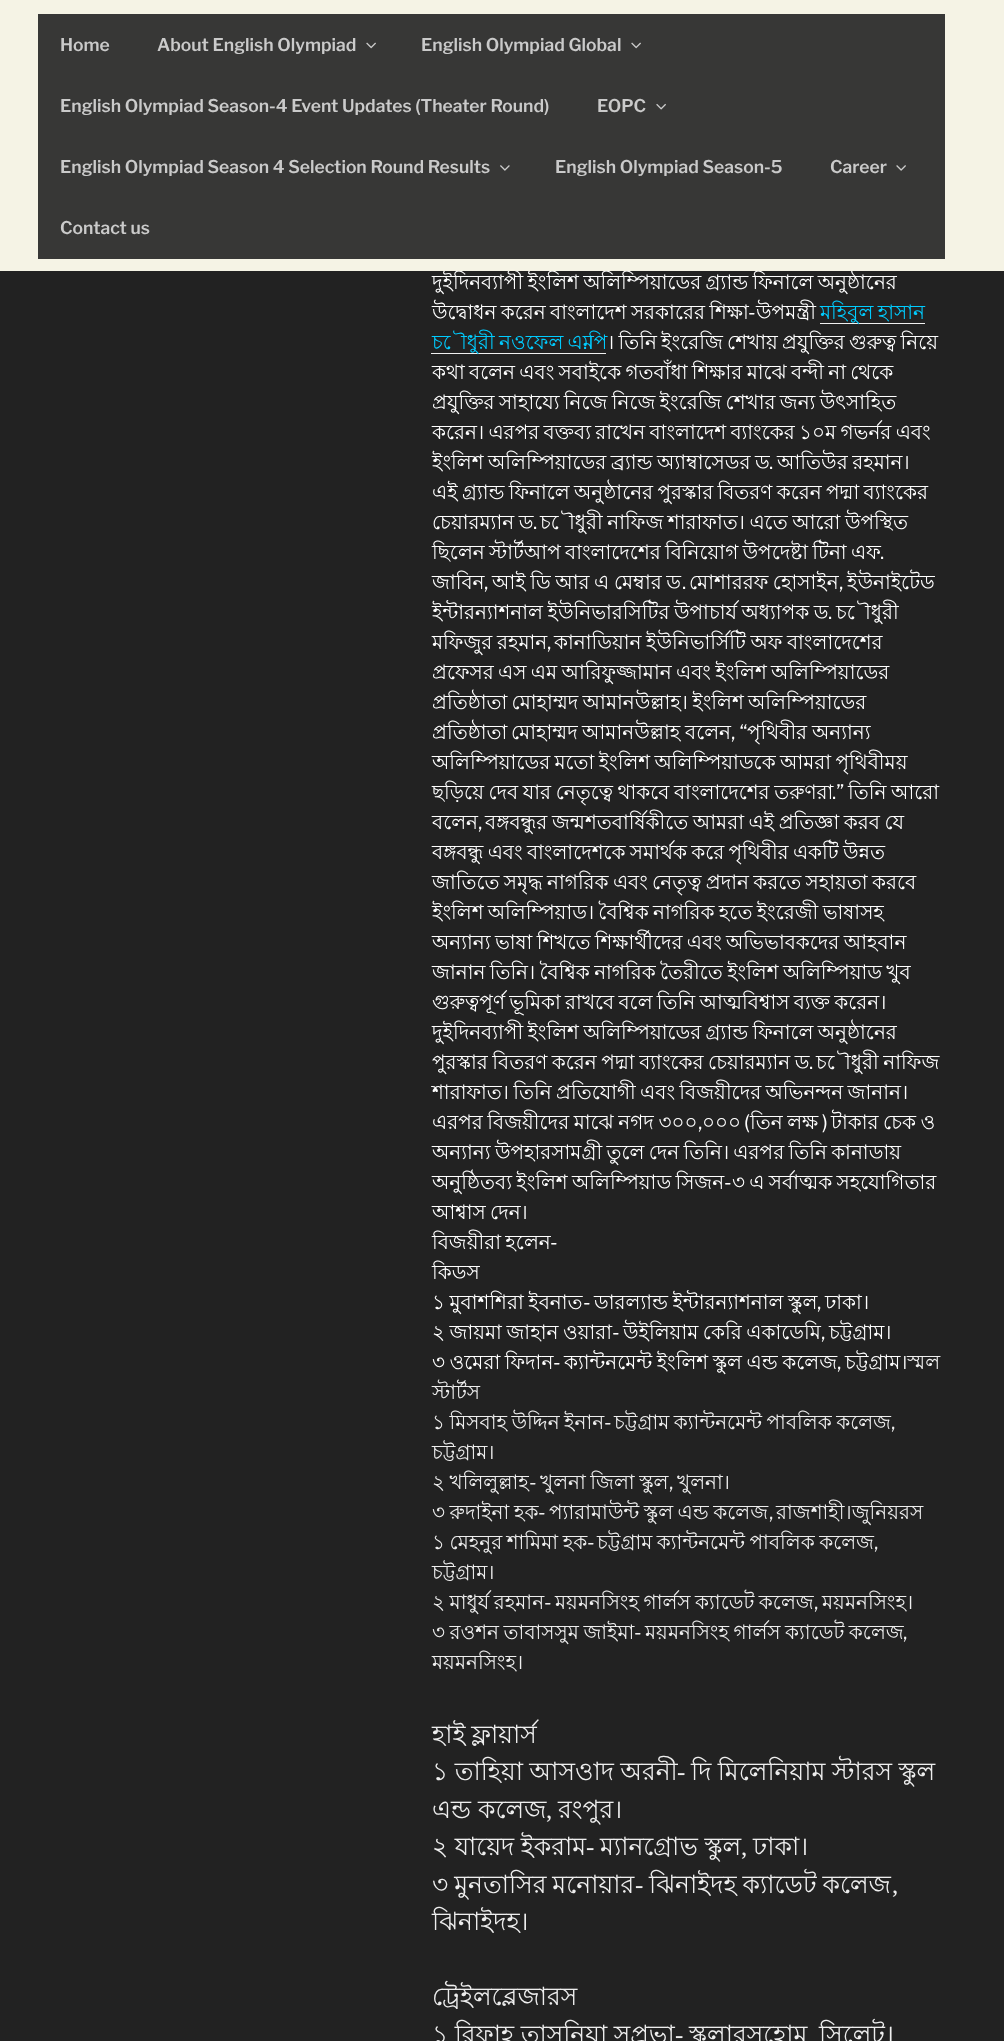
<svg xmlns="http://www.w3.org/2000/svg" width="1004" height="2041" viewBox="0 0 1004 2041">
  <rect width="100%" height="100%" fill="#222222"/>
  <text x="432" y="289" word-spacing="-1.25" font-family="Lohit Bengali" font-size="20" fill="#ffffff">দুইদিনব্যাপী ইংলিশ অলিম্পিয়াডের গ্র্যান্ড ফিনালে অনুষ্ঠানের</text>
  <rect x="0" y="0" width="1004" height="271" fill="#f7f5e7" fill-opacity="0.9"/>
  <rect x="0" y="0" width="1004" height="271" fill="#f7f5e7" fill-opacity="0.9"/>
  <rect x="38" y="14" width="907" height="245" fill="#373736"/>
  <text x="60" y="51" font-family="'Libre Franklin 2'" font-size="17.5" font-weight="100" fill="#cacaca">Home</text>
  <text x="157" y="51" font-family="'Libre Franklin 2'" font-size="17.5" font-weight="100" fill="#cacaca">About English Olympiad</text>
  <image x="366" y="42" width="10" height="7" href="img1.png"/>
  <text x="421" y="51" font-family="'Libre Franklin 2'" font-size="17.5" font-weight="100" fill="#cacaca">English Olympiad Global</text>
  <image x="631" y="42" width="10" height="7" href="img1.png"/>
  <text x="60" y="112" font-family="'Libre Franklin 2'" font-size="17.5" font-weight="100" fill="#cacaca">English Olympiad Season-4 Event Updates (Theater Round)</text>
  <text x="597" y="112" font-family="'Libre Franklin 2'" font-size="17.5" font-weight="100" fill="#cacaca">EOPC</text>
  <image x="656" y="103" width="10" height="7" href="img2.png"/>
  <text x="60" y="173" font-family="'Libre Franklin 2'" font-size="17.5" font-weight="100" fill="#cacaca">English Olympiad Season 4 Selection Round Results</text>
  <image x="500" y="165" width="10" height="6" href="img3.png"/>
  <text x="555" y="173" font-family="'Libre Franklin 2'" font-size="17.5" font-weight="100" fill="#cacaca">English Olympiad Season-5</text>
  <text x="830" y="173" font-family="'Libre Franklin 2'" font-size="17.5" font-weight="100" fill="#cacaca">Career</text>
  <image x="896" y="165" width="10" height="6" href="img4.png"/>
  <text x="60" y="234" font-family="'Libre Franklin 2'" font-size="17.5" font-weight="100" fill="#cacaca">Contact us</text>
  <text x="432" y="319" word-spacing="-1.25" font-family="Lohit Bengali" font-size="20" fill="#ffffff">উদ্বোধন করেন বাংলাদেশ সরকারের শিক্ষা</text>
  <text x="748" y="319" font-family="Libre Franklin" font-size="20" font-weight="100" fill="#ffffff">-</text>
  <text x="756" y="319" font-family="Lohit Bengali" font-size="20" fill="#ffffff">উপমন্ত্রী</text>
  <rect x="820" y="323" width="105" height="1" fill="#f0f0f0"/>
  <text x="820" y="319" word-spacing="-1.25" font-family="Lohit Bengali" font-size="20" fill="#00ccff">মহিবুল হাসান</text>
  <rect x="431" y="353" width="175" height="1" fill="#f0f0f0"/>
  <text x="432" y="349" word-spacing="-1.25" font-family="Lohit Bengali" font-size="20" fill="#00ccff">চৌধুরী নওফেল এম</text>
  <text x="583" y="349" font-family="Libre Franklin" font-size="20" font-weight="100" fill="#00ccff">.</text>
  <text x="588" y="349" font-family="Lohit Bengali" font-size="20" fill="#00ccff">পি</text>
  <text x="607" y="349" word-spacing="-1.25" font-family="Lohit Bengali" font-size="20" fill="#ffffff">। তিনি ইংরেজি শেখায় প্রযুক্তির গুরুত্ব নিয়ে</text>
  <text x="432" y="379" word-spacing="-1.25" font-family="Lohit Bengali" font-size="20" fill="#ffffff">কথা বলেন এবং সবাইকে গতবাঁধা শিক্ষার মাঝে বন্দী না থেকে</text>
  <text x="432" y="409" word-spacing="-1.25" font-family="Lohit Bengali" font-size="20" fill="#ffffff">প্রযুক্তির সাহায্যে নিজে নিজে ইংরেজি শেখার জন্য উৎসাহিত</text>
  <text x="432" y="439" word-spacing="-1.25" font-family="Lohit Bengali" font-size="20" fill="#ffffff">করেন। এরপর বক্তব্য রাখেন বাংলাদেশ ব্যাংকের ১০ম গভর্নর এবং</text>
  <text x="432" y="469" word-spacing="-1" font-family="Lohit Bengali" font-size="20" fill="#ffffff">ইংলিশ অলিম্পিয়াডের ব্র্যান্ড অ্যাম্বাসেডর ড</text>
  <text x="769" y="469" font-family="Libre Franklin" font-size="20" font-weight="100" fill="#ffffff">.</text>
  <text x="777" y="469" word-spacing="-1" font-family="Lohit Bengali" font-size="20" fill="#ffffff">আতিউর রহমান।</text>
  <text x="432" y="499" word-spacing="-1.25" font-family="Lohit Bengali" font-size="20" fill="#ffffff">এই গ্র্যান্ড ফিনালে অনুষ্ঠানের পুরস্কার বিতরণ করেন পদ্মা ব্যাংকের</text>
  <text x="432" y="529" word-spacing="-1" font-family="Lohit Bengali" font-size="20" fill="#ffffff">চেয়ারম্যান ড</text>
  <text x="533" y="529" font-family="Libre Franklin" font-size="20" font-weight="100" fill="#ffffff">.</text>
  <text x="540" y="529" word-spacing="-1" font-family="Lohit Bengali" font-size="20" fill="#ffffff">চৌধুরী নাফিজ শারাফাত। এতে আরো উপস্থিত</text>
  <text x="432" y="559" word-spacing="-1.25" font-family="Lohit Bengali" font-size="20" fill="#ffffff">ছিলেন স্টার্টআপ বাংলাদেশের বিনিয়োগ উপদেষ্টা টিনা এফ</text>
  <text x="880" y="559" font-family="Libre Franklin" font-size="20" font-weight="100" fill="#ffffff">.</text>
  <text x="432" y="589" font-family="Lohit Bengali" font-size="20" fill="#ffffff">জাবিন</text>
  <text x="484" y="589" font-family="Libre Franklin" font-size="20" font-weight="100" fill="#ffffff">,</text>
  <text x="492" y="589" word-spacing="-1" font-family="Lohit Bengali" font-size="20" fill="#ffffff">আই ডি আর এ মেম্বার ড</text>
  <text x="682" y="589" font-family="Libre Franklin" font-size="20" font-weight="100" fill="#ffffff">.</text>
  <text x="689" y="589" word-spacing="-1" font-family="Lohit Bengali" font-size="20" fill="#ffffff">মোশাররফ হোসাইন</text>
  <text x="839" y="589" font-family="Libre Franklin" font-size="20" font-weight="100" fill="#ffffff">,</text>
  <text x="847" y="589" font-family="Lohit Bengali" font-size="20" fill="#ffffff">ইউনাইটেড</text>
  <text x="432" y="619" word-spacing="-1" font-family="Lohit Bengali" font-size="20" fill="#ffffff">ইন্টারন্যাশনাল ইউনিভারসিটির উপাচার্য অধ্যাপক ড</text>
  <text x="828" y="619" font-family="Libre Franklin" font-size="20" font-weight="100" fill="#ffffff">.</text>
  <text x="836" y="619" font-family="Lohit Bengali" font-size="20" fill="#ffffff">চৌধুরী</text>
  <text x="432" y="649" word-spacing="-1" font-family="Lohit Bengali" font-size="20" fill="#ffffff">মফিজুর রহমান</text>
  <text x="547" y="649" font-family="Libre Franklin" font-size="20" font-weight="100" fill="#ffffff">,</text>
  <text x="554" y="649" word-spacing="-1" font-family="Lohit Bengali" font-size="20" fill="#ffffff">কানাডিয়ান ইউনিভার্সিটি অফ বাংলাদেশের</text>
  <text x="432" y="679" word-spacing="-1.25" font-family="Lohit Bengali" font-size="20" fill="#ffffff">প্রফেসর এস এম আরিফুজ্জামান এবং ইংলিশ অলিম্পিয়াডের</text>
  <text x="432" y="709" word-spacing="-1.25" font-family="Lohit Bengali" font-size="20" fill="#ffffff">প্রতিষ্ঠাতা মোহাম্মদ আমানউল্লাহ। ইংলিশ অলিম্পিয়াডের</text>
  <text x="432" y="739" font-family="Lohit Bengali" font-size="20" fill="#ffffff">প্রতিষ্ঠাতা</text>
  <text x="511" y="739" font-family="Lohit Bengali" font-size="20" fill="#ffffff">মোহাম্মদ</text>
  <text x="582" y="739" font-family="Lohit Bengali" font-size="20" fill="#ffffff">আমানউল্লাহ</text>
  <text x="685" y="739" font-family="Lohit Bengali" font-size="20" fill="#ffffff">বলেন</text>
  <text x="731" y="739" font-family="Libre Franklin" font-size="20" font-weight="100" fill="#ffffff">, “</text>
  <text x="747" y="739" font-family="Lohit Bengali" font-size="20" fill="#ffffff">পৃথিবীর</text>
  <text x="812" y="739" font-family="Lohit Bengali" font-size="20" fill="#ffffff">অন্যান্য</text>
  <text x="432" y="769" word-spacing="-1.25" font-family="Lohit Bengali" font-size="20" fill="#ffffff">অলিম্পিয়াডের মতো ইংলিশ অলিম্পিয়াডকে আমরা পৃথিবীময়</text>
  <text x="432" y="799" word-spacing="-1" font-family="Lohit Bengali" font-size="20" fill="#ffffff">ছড়িয়ে দেব যার নেতৃত্বে থাকবে বাংলাদেশের তরুণরা</text>
  <text x="832" y="799" font-family="Libre Franklin" font-size="20" font-weight="100" fill="#ffffff">.”</text>
  <text x="848" y="799" word-spacing="-1" font-family="Lohit Bengali" font-size="20" fill="#ffffff">তিনি আরো</text>
  <text x="432" y="829" font-family="Lohit Bengali" font-size="20" fill="#ffffff">বলেন</text>
  <text x="478" y="829" font-family="Libre Franklin" font-size="20" font-weight="100" fill="#ffffff">,</text>
  <text x="485" y="829" word-spacing="-1" font-family="Lohit Bengali" font-size="20" fill="#ffffff">বঙ্গবন্ধুর জন্মশতবার্ষিকীতে আমরা এই প্রতিজ্ঞা করব যে</text>
  <text x="432" y="859" word-spacing="-1.25" font-family="Lohit Bengali" font-size="20" fill="#ffffff">বঙ্গবন্ধু এবং বাংলাদেশকে সমার্থক করে পৃথিবীর একটি উন্নত</text>
  <text x="432" y="889" word-spacing="-1.25" font-family="Lohit Bengali" font-size="20" fill="#ffffff">জাতিতে সমৃদ্ধ নাগরিক এবং নেতৃত্ব প্রদান করতে সহায়তা করবে</text>
  <text x="432" y="919" word-spacing="-1.25" font-family="Lohit Bengali" font-size="20" fill="#ffffff">ইংলিশ অলিম্পিয়াড। বৈশ্বিক নাগরিক হতে ইংরেজী ভাষাসহ</text>
  <text x="432" y="949" word-spacing="-1.25" font-family="Lohit Bengali" font-size="20" fill="#ffffff">অন্যান্য ভাষা শিখতে শিক্ষার্থীদের এবং অভিভাবকদের আহবান</text>
  <text x="432" y="979" word-spacing="-1.25" font-family="Lohit Bengali" font-size="20" fill="#ffffff">জানান তিনি। বৈশ্বিক নাগরিক তৈরীতে ইংলিশ অলিম্পিয়াড খুব</text>
  <text x="432" y="1009" word-spacing="-1.25" font-family="Lohit Bengali" font-size="20" fill="#ffffff">গুরুত্বপূর্ণ ভূমিকা রাখবে বলে তিনি আত্মবিশ্বাস ব্যক্ত করেন।</text>
  <text x="432" y="1039" word-spacing="-1.25" font-family="Lohit Bengali" font-size="20" fill="#ffffff">দুইদিনব্যাপী ইংলিশ অলিম্পিয়াডের গ্র্যান্ড ফিনালে অনুষ্ঠানের</text>
  <text x="432" y="1069" word-spacing="-1" font-family="Lohit Bengali" font-size="20" fill="#ffffff">পুরস্কার বিতরণ করেন পদ্মা ব্যাংকের চেয়ারম্যান ড</text>
  <text x="809" y="1069" font-family="Libre Franklin" font-size="20" font-weight="100" fill="#ffffff">.</text>
  <text x="816" y="1069" word-spacing="-1" font-family="Lohit Bengali" font-size="20" fill="#ffffff">চৌধুরী নাফিজ</text>
  <text x="432" y="1099" word-spacing="-1.25" font-family="Lohit Bengali" font-size="20" fill="#ffffff">শারাফাত। তিনি প্রতিযোগী এবং বিজয়ীদের অভিনন্দন জানান।</text>
  <text x="432" y="1129" word-spacing="-1" font-family="Lohit Bengali" font-size="20" fill="#ffffff">এরপর বিজয়ীদের মাঝে নগদ ৩০০</text>
  <text x="702" y="1129" font-family="Lohit Bengali" font-size="20" fill="#ffffff">০০০</text>
  <text x="744" y="1129" font-family="Libre Franklin" font-size="20" font-weight="100" fill="#ffffff">(</text>
  <text x="750" y="1129" word-spacing="-1" font-family="Lohit Bengali" font-size="20" fill="#ffffff">তিন লক্ষ</text>
  <text x="822" y="1129" font-family="Libre Franklin" font-size="20" font-weight="100" fill="#ffffff">)</text>
  <text x="831" y="1129" word-spacing="-1" font-family="Lohit Bengali" font-size="20" fill="#ffffff">টাকার চেক ও</text>
  <text x="698" y="1129" font-family="Libre Franklin" font-size="20" font-weight="100" fill="#ffffff">,</text>
  <text x="432" y="1159" word-spacing="-1.25" font-family="Lohit Bengali" font-size="20" fill="#ffffff">অন্যান্য উপহারসামগ্রী তুলে দেন তিনি। এরপর তিনি কানাডায়</text>
  <text x="432" y="1189" word-spacing="-1.25" font-family="Lohit Bengali" font-size="20" fill="#ffffff">অনুষ্ঠিতব্য ইংলিশ অলিম্পিয়াড সিজন</text>
  <text x="724" y="1189" font-family="Libre Franklin" font-size="20" font-weight="100" fill="#ffffff">-</text>
  <text x="732" y="1189" word-spacing="-1.25" font-family="Lohit Bengali" font-size="20" fill="#ffffff">৩ এ সর্বাত্মক সহযোগিতার</text>
  <text x="432" y="1219" word-spacing="-1.25" font-family="Lohit Bengali" font-size="20" fill="#ffffff">আশ্বাস দেন।</text>
  <text x="432" y="1249" word-spacing="-1.25" font-family="Lohit Bengali" font-size="20" fill="#ffffff">বিজয়ীরা হলেন</text>
  <text x="550" y="1249" font-family="Libre Franklin" font-size="20" font-weight="100" fill="#ffffff">-</text>
  <text x="432" y="1279" font-family="Lohit Bengali" font-size="20" fill="#ffffff">কিডস</text>
  <text x="432" y="1309" word-spacing="-1" font-family="Lohit Bengali" font-size="20" fill="#ffffff">১ মুবাশশিরা ইবনাত</text>
  <text x="583" y="1309" font-family="Libre Franklin" font-size="20" font-weight="100" fill="#ffffff">-</text>
  <text x="594" y="1309" word-spacing="-1" font-family="Lohit Bengali" font-size="20" fill="#ffffff">ডারল্যান্ড ইন্টারন্যাশনাল স্কুল</text>
  <text x="825" y="1309" font-family="Lohit Bengali" font-size="20" fill="#ffffff">ঢাকা।</text>
  <text x="817" y="1309" font-family="Libre Franklin" font-size="20" font-weight="100" fill="#ffffff">,</text>
  <text x="432" y="1339" word-spacing="-1" font-family="Lohit Bengali" font-size="20" fill="#ffffff">২ জায়মা জাহান ওয়ারা</text>
  <text x="612" y="1339" font-family="Libre Franklin" font-size="20" font-weight="100" fill="#ffffff">-</text>
  <text x="623" y="1339" word-spacing="-1" font-family="Lohit Bengali" font-size="20" fill="#ffffff">উইলিয়াম কেরি একাডেমি</text>
  <text x="829" y="1339" font-family="Lohit Bengali" font-size="20" fill="#ffffff">চট্টগ্রাম।</text>
  <text x="821" y="1339" font-family="Libre Franklin" font-size="20" font-weight="100" fill="#ffffff">,</text>
  <text x="432" y="1369" word-spacing="-1" font-family="Lohit Bengali" font-size="20" fill="#ffffff">৩ ওমেরা ফিদান</text>
  <text x="553" y="1369" font-family="Libre Franklin" font-size="20" font-weight="100" fill="#ffffff">-</text>
  <text x="564" y="1369" word-spacing="-1" font-family="Lohit Bengali" font-size="20" fill="#ffffff">ক্যান্টনমেন্ট ইংলিশ স্কুল এন্ড কলেজ</text>
  <text x="845" y="1369" font-family="Lohit Bengali" font-size="20" fill="#ffffff">চট্টগ্রাম।</text>
  <text x="907" y="1369" font-family="Lohit Bengali" font-size="20" fill="#eeeeee">স্মল</text>
  <text x="837" y="1369" font-family="Libre Franklin" font-size="20" font-weight="100" fill="#ffffff">,</text>
  <text x="432" y="1399" font-family="Lohit Bengali" font-size="20" fill="#eeeeee">স্টার্টস</text>
  <text x="432" y="1429" word-spacing="-1" font-family="Lohit Bengali" font-size="20" fill="#eeeeee">১ মিসবাহ উদ্দিন ইনান</text>
  <text x="604" y="1429" font-family="Libre Franklin" font-size="20" font-weight="100" fill="#eeeeee">-</text>
  <text x="614" y="1429" word-spacing="-1" font-family="Lohit Bengali" font-size="20" fill="#eeeeee">চট্টগ্রাম ক্যান্টনমেন্ট পাবলিক কলেজ</text>
  <text x="891" y="1429" font-family="Libre Franklin" font-size="20" font-weight="100" fill="#eeeeee">,</text>
  <text x="432" y="1459" font-family="Lohit Bengali" font-size="20" fill="#eeeeee">চট্টগ্রাম।</text>
  <text x="432" y="1489" word-spacing="-1" font-family="Lohit Bengali" font-size="20" fill="#eeeeee">২ খলিলুল্লাহ</text>
  <text x="529" y="1489" font-family="Libre Franklin" font-size="20" font-weight="100" fill="#eeeeee">-</text>
  <text x="540" y="1489" word-spacing="-1" font-family="Lohit Bengali" font-size="20" fill="#eeeeee">খুলনা জিলা স্কুল</text>
  <text x="669" y="1489" font-family="Libre Franklin" font-size="20" font-weight="100" fill="#eeeeee">,</text>
  <text x="677" y="1489" font-family="Lohit Bengali" font-size="20" fill="#eeeeee">খুলনা।</text>
  <text x="432" y="1519" word-spacing="-1" font-family="Lohit Bengali" font-size="20" fill="#eeeeee">৩ রুদাইনা হক</text>
  <text x="538" y="1519" font-family="Libre Franklin" font-size="20" font-weight="100" fill="#eeeeee">-</text>
  <text x="549" y="1519" word-spacing="-1" font-family="Lohit Bengali" font-size="20" fill="#eeeeee">প্যারামাউন্ট স্কুল এন্ড কলেজ</text>
  <text x="776" y="1519" font-family="Lohit Bengali" font-size="20" fill="#eeeeee">রাজশাহী।জুনিয়রস</text>
  <text x="769" y="1519" font-family="Libre Franklin" font-size="20" font-weight="100" fill="#eeeeee">,</text>
  <text x="432" y="1549" word-spacing="-1" font-family="Lohit Bengali" font-size="20" fill="#eeeeee">১ মেহনুর শামিমা হক</text>
  <text x="587" y="1549" font-family="Libre Franklin" font-size="20" font-weight="100" fill="#eeeeee">-</text>
  <text x="597" y="1549" word-spacing="-1" font-family="Lohit Bengali" font-size="20" fill="#eeeeee">চট্টগ্রাম ক্যান্টনমেন্ট পাবলিক কলেজ</text>
  <text x="874" y="1549" font-family="Libre Franklin" font-size="20" font-weight="100" fill="#eeeeee">,</text>
  <text x="432" y="1579" font-family="Lohit Bengali" font-size="20" fill="#eeeeee">চট্টগ্রাম।</text>
  <text x="432" y="1609" word-spacing="-1" font-family="Lohit Bengali" font-size="20" fill="#eeeeee">২ মাধুর্য রহমান</text>
  <text x="544" y="1609" font-family="Libre Franklin" font-size="20" font-weight="100" fill="#eeeeee">-</text>
  <text x="555" y="1609" word-spacing="-1" font-family="Lohit Bengali" font-size="20" fill="#eeeeee">ময়মনসিংহ গার্লস ক্যাডেট কলেজ</text>
  <text x="822" y="1609" font-family="Lohit Bengali" font-size="20" fill="#eeeeee">ময়মনসিংহ।</text>
  <text x="814" y="1609" font-family="Libre Franklin" font-size="20" font-weight="100" fill="#eeeeee">,</text>
  <text x="432" y="1639" word-spacing="-1" font-family="Lohit Bengali" font-size="20" fill="#eeeeee">৩ রওশন তাবাসসুম জাইমা</text>
  <text x="634" y="1639" font-family="Libre Franklin" font-size="20" font-weight="100" fill="#eeeeee">-</text>
  <text x="645" y="1639" word-spacing="-1" font-family="Lohit Bengali" font-size="20" fill="#eeeeee">ময়মনসিংহ গার্লস ক্যাডেট কলেজ</text>
  <text x="903" y="1639" font-family="Libre Franklin" font-size="20" font-weight="100" fill="#eeeeee">,</text>
  <text x="432" y="1669" font-family="Lohit Bengali" font-size="20" fill="#eeeeee">ময়মনসিংহ।</text>
  <text x="432" y="1743" word-spacing="-1" font-family="Lohit Bengali" font-size="25" fill="#eeeeee">হাই ফ্লায়ার্স</text>
  <text x="432" y="1780" word-spacing="-0.5" font-family="Lohit Bengali" font-size="25" fill="#eeeeee">১ তাহিয়া আসওাদ অরনী</text>
  <text x="677" y="1780" font-family="Liberation Serif" font-size="25" fill="#eeeeee">-</text>
  <text x="691" y="1780" word-spacing="-0.5" font-family="Lohit Bengali" font-size="25" fill="#eeeeee">দি মিলেনিয়াম স্টারস স্কুল</text>
  <text x="432" y="1818" font-family="Lohit Bengali" font-size="25" fill="#eeeeee">এন্ড কলেজ</text>
  <text x="546" y="1818" font-family="Liberation Serif" font-size="25" fill="#eeeeee">,</text>
  <text x="558" y="1818" font-family="Lohit Bengali" font-size="25" fill="#eeeeee">রংপুর।</text>
  <text x="432" y="1855" word-spacing="-0.5" font-family="Lohit Bengali" font-size="25" fill="#eeeeee">২ যায়েদ ইকরাম</text>
  <text x="586" y="1855" font-family="Liberation Serif" font-size="25" fill="#eeeeee">-</text>
  <text x="600" y="1855" word-spacing="-0.5" font-family="Lohit Bengali" font-size="25" fill="#eeeeee">ম্যানগ্রোভ স্কুল</text>
  <text x="753" y="1855" font-family="Lohit Bengali" font-size="25" fill="#eeeeee">ঢাকা।</text>
  <text x="741" y="1855" font-family="Liberation Serif" font-size="25" fill="#eeeeee">,</text>
  <text x="432" y="1893" word-spacing="-1" font-family="Lohit Bengali" font-size="25" fill="#eeeeee">৩ মুনতাসির মনোয়ার</text>
  <text x="635" y="1893" font-family="Liberation Serif" font-size="25" fill="#eeeeee">-</text>
  <text x="649" y="1893" word-spacing="-1" font-family="Lohit Bengali" font-size="25" fill="#eeeeee">ঝিনাইদহ ক্যাডেট কলেজ</text>
  <text x="892" y="1893" font-family="Liberation Serif" font-size="25" fill="#eeeeee">,</text>
  <text x="432" y="1930" font-family="Lohit Bengali" font-size="25" fill="#eeeeee">ঝিনাইদহ।</text>
  <text x="432" y="2005" font-family="Lohit Bengali" font-size="25" fill="#eeeeee">ট্রেইলব্লেজারস</text>
  <text x="432" y="2043" word-spacing="-0.5" font-family="Lohit Bengali" font-size="25" fill="#eeeeee">১ রিফাহ তাসনিয়া সুপ্রভা</text>
  <text x="675" y="2043" font-family="Liberation Serif" font-size="25" fill="#eeeeee">-</text>
  <text x="689" y="2043" font-family="Lohit Bengali" font-size="25" fill="#eeeeee">স্কলারসহোম</text>
  <text x="819" y="2043" font-family="Lohit Bengali" font-size="25" fill="#eeeeee">সিলেট।</text>
</svg>
